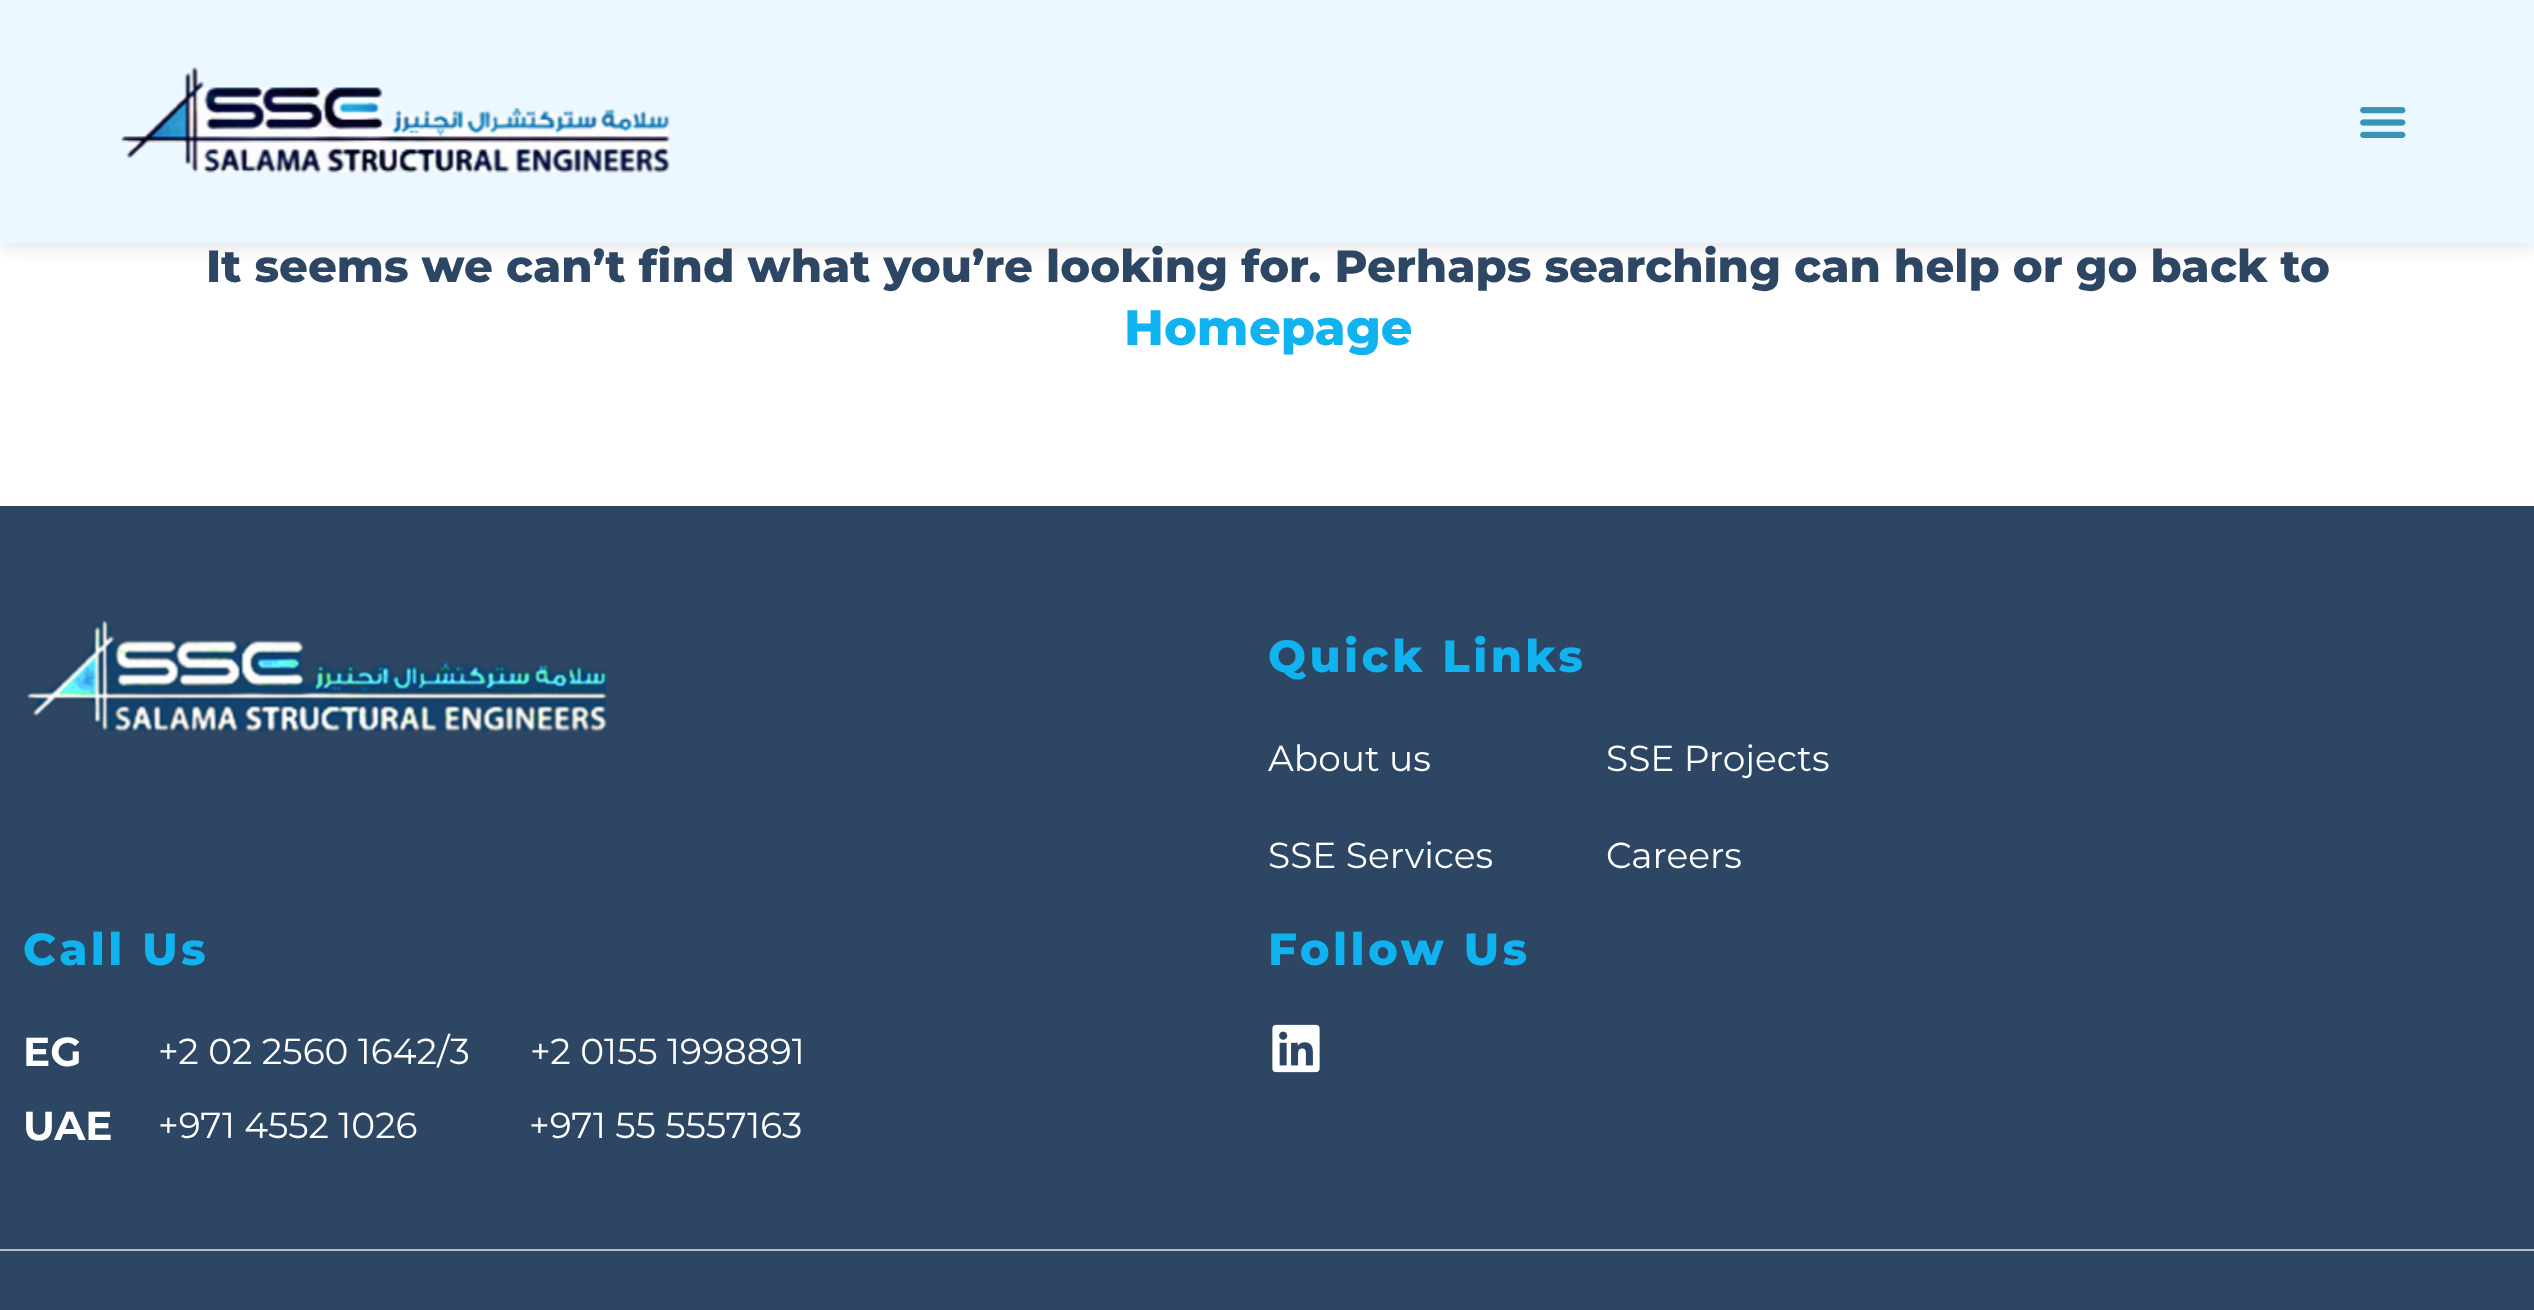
<svg xmlns="http://www.w3.org/2000/svg" width="2534" height="1310" viewBox="0 0 2534 1310">
  <defs>
    <filter id="blur1" x="-50%" y="-200%" width="200%" height="500%"><feGaussianBlur stdDeviation="9"/></filter>
  </defs>
  <rect width="100%" height="100%" fill="#ffffff"/>
  <rect x="0" y="5" width="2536" height="243" fill="#000000" fill-opacity="0.1" filter="url(#blur1)"/>
  <rect x="0" y="0" width="2534" height="243" fill="#ebf8ff"/>
  <image x="120" y="66" width="550" height="107" href="img1.png"/>
  <image x="2360" y="107" width="46" height="31" href="img2.png"/>
  <text x="206" y="282" font-family="Montserrat" font-size="45" font-weight="800" fill="#2c4663">It seems we can’t find what you’re looking for. Perhaps searching can help or go back to</text>
  <text x="1124" y="345" font-family="Montserrat" font-size="49.5" font-weight="800" fill="#11b2f0">Homepage</text>
  <rect x="0" y="506" width="2534" height="743" fill="#2c4663"/>
  <image x="25" y="620" width="582" height="112" href="img3.png"/>
  <text x="1268" y="672" font-family="Montserrat" font-size="45" font-weight="800" letter-spacing="3.4" fill="#11b2f0">Quick Links</text>
  <text x="1268" y="771" font-family="Montserrat" font-size="36" fill="#ffffff">About us</text>
  <text x="1268" y="868" font-family="Montserrat" font-size="36" fill="#ffffff">SSE Services</text>
  <text x="1606" y="771" font-family="Montserrat" font-size="36" fill="#ffffff">SSE Projects</text>
  <text x="1606" y="868" font-family="Montserrat" font-size="36" fill="#ffffff">Careers</text>
  <text x="23" y="965" font-family="Montserrat" font-size="45" font-weight="800" letter-spacing="3.4" fill="#11b2f0">Call Us</text>
  <text x="23" y="1066" font-family="Montserrat" font-size="40.5" font-weight="bold" fill="#ffffff">EG</text>
  <text x="158" y="1064" font-family="Montserrat" font-size="36" fill="#ffffff">+2 02 2560 1642/3</text>
  <text x="530" y="1064" font-family="Montserrat" font-size="36" fill="#ffffff">+2 0155 1998891</text>
  <text x="23" y="1140" font-family="Montserrat" font-size="40.5" font-weight="bold" fill="#ffffff">UAE</text>
  <text x="158" y="1138" font-family="Montserrat" font-size="36" fill="#ffffff">+971 4552 1026</text>
  <text x="529" y="1138" font-family="Montserrat" font-size="36" fill="#ffffff">+971 55 5557163</text>
  <text x="1268" y="965" font-family="Montserrat" font-size="45" font-weight="800" letter-spacing="3.4" fill="#11b2f0">Follow Us</text>
  <image x="1272" y="1024" width="48" height="49" href="img4.png"/>
  <rect x="0" y="1251" width="2534" height="59" fill="#2c4663"/>
  <rect x="0" y="1249" width="2534" height="2" fill="#bbbbbb"/>
</svg>
